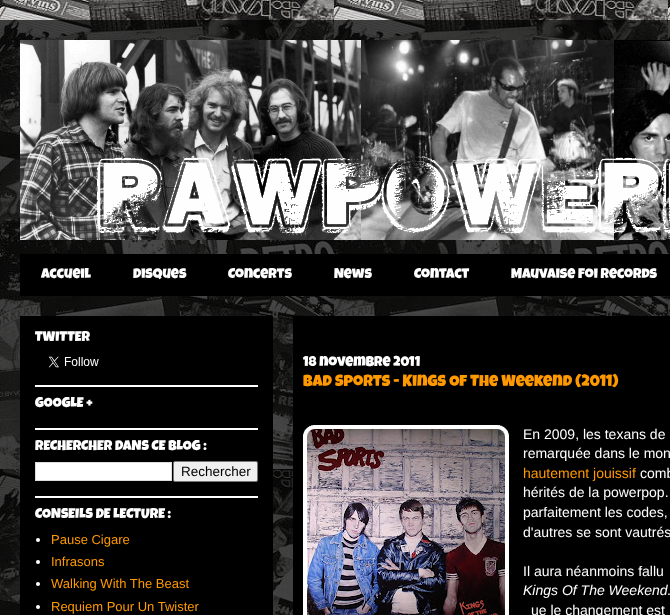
<svg xmlns="http://www.w3.org/2000/svg" width="670" height="615" viewBox="0 0 670 615">
  <rect width="100%" height="100%" fill="#ffffff"/>
  <image x="0" y="0" width="670" height="615" href="img1.png"/>
  <image x="20" y="40" width="650" height="200" href="img2.png"/>
  <rect x="20" y="254" width="650" height="42" fill="#000000"/>
  <text x="41" y="278" font-family="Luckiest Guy" font-size="14" fill="#ffffff">Accueil</text>
  <text x="133" y="278" font-family="Luckiest Guy" font-size="14" fill="#ffffff">Disques</text>
  <text x="228" y="278" font-family="Luckiest Guy" font-size="14" fill="#ffffff">Concerts</text>
  <text x="334" y="278" font-family="Luckiest Guy" font-size="14" fill="#ffffff">News</text>
  <text x="414" y="278" font-family="Luckiest Guy" font-size="14" fill="#ffffff">Contact</text>
  <text x="511" y="278" font-family="Luckiest Guy" font-size="14" fill="#ffffff">Mauvaise Foi Records</text>
  <rect x="20" y="316" width="253" height="299" fill="#000000"/>
  <rect x="35" y="385" width="223" height="2" fill="#ffffff"/>
  <text x="35" y="341" font-family="Luckiest Guy" font-size="14" fill="#ffffff">TWITTER</text>
  <image x="48" y="356" width="51" height="12" href="img3.png"/>
  <rect x="35" y="428" width="223" height="2" fill="#ffffff"/>
  <text x="35" y="407" font-family="Luckiest Guy" font-size="14" fill="#ffffff">GOOGLE +</text>
  <rect x="35" y="496" width="223" height="2" fill="#ffffff"/>
  <text x="35" y="450" font-family="Luckiest Guy" font-size="14" fill="#ffffff">RECHERCHER DANS CE BLOG :</text>
  <rect x="35.5" y="462.5" width="136" height="18" fill="#ffffff" stroke="#dddddd"/>
  <rect x="173.5" y="461.5" width="84" height="20" rx="1.5" fill="#efefef" stroke="#767676"/>
  <text x="181" y="476" font-family="Liberation Sans" font-size="13.5" fill="#000000">Rechercher</text>
  <text x="35" y="518" font-family="Luckiest Guy" font-size="14" fill="#ffffff">CONSEILS DE LECTURE :</text>
  <circle cx="38" cy="540" r="2" fill="#ffffff"/>
  <text x="51" y="544" font-family="Liberation Sans" font-size="13" fill="#ff9900">Pause Cigare</text>
  <circle cx="38" cy="562" r="2" fill="#ffffff"/>
  <text x="51" y="566" font-family="Liberation Sans" font-size="13" fill="#ff9900">Infrasons</text>
  <circle cx="38" cy="584" r="2" fill="#ffffff"/>
  <text x="51" y="588" font-family="Liberation Sans" font-size="13" fill="#ff9900">Walking With The Beast</text>
  <circle cx="38" cy="607" r="2" fill="#ffffff"/>
  <text x="51" y="611" font-family="Liberation Sans" font-size="13" fill="#ff9900">Requiem Pour Un Twister</text>
  <rect x="293" y="316" width="377" height="299" fill="#000000"/>
  <text x="303" y="366" font-family="Luckiest Guy" font-size="14" fill="#ffffff">18 novembre 2011</text>
  <text x="303" y="386" font-family="Luckiest Guy" font-size="16" fill="#ff9900">Bad Sports - Kings Of The Weekend (2011)</text>
  <rect x="303" y="425" width="206" height="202" rx="12" fill="#ffffff"/>
  <path d="M315 425.5H497C503.5 425.5 508.5 430.5 508.5 437V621C508.5 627.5 503.5 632.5 497 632.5H315C308.5 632.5 303.5 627.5 303.5 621V437C303.5 430.5 308.5 425.5 315 425.5Z" fill="none" stroke="#ffffff" stroke-dasharray="1 1"/>
  <image x="307" y="429" width="198" height="186" href="img4.png"/>
  <text x="523" y="439" font-family="Liberation Sans" font-size="14" fill="#ffffff">En 2009, les texans de</text>
  <text x="523" y="458" font-family="Liberation Sans" font-size="14" fill="#ffffff">remarquée dans le mon</text>
  <text x="523" y="478" font-family="Liberation Sans" font-size="14" fill="#ff9900">hautement jouissif</text>
  <text x="640" y="478" font-family="Liberation Sans" font-size="14" fill="#ffffff">comb</text>
  <text x="523" y="497" font-family="Liberation Sans" font-size="14" fill="#ffffff">hérités de la powerpop.</text>
  <text x="523" y="517" font-family="Liberation Sans" font-size="14" fill="#ffffff">parfaitement les codes,</text>
  <text x="523" y="537" font-family="Liberation Sans" font-size="14" fill="#ffffff">d'autres se sont vautrés</text>
  <text x="523" y="576" font-family="Liberation Sans" font-size="14" fill="#ffffff">Il aura néanmoins fallu</text>
  <text x="523" y="595" font-family="Liberation Sans" font-size="14" font-style="italic" fill="#ffffff">Kings Of The Weekend</text>
  <text x="667" y="595" font-family="Liberation Sans" font-size="14" fill="#ffffff">.</text>
  <text x="531" y="615" font-family="Liberation Sans" font-size="14" fill="#ffffff">ue le changement est</text>
</svg>
